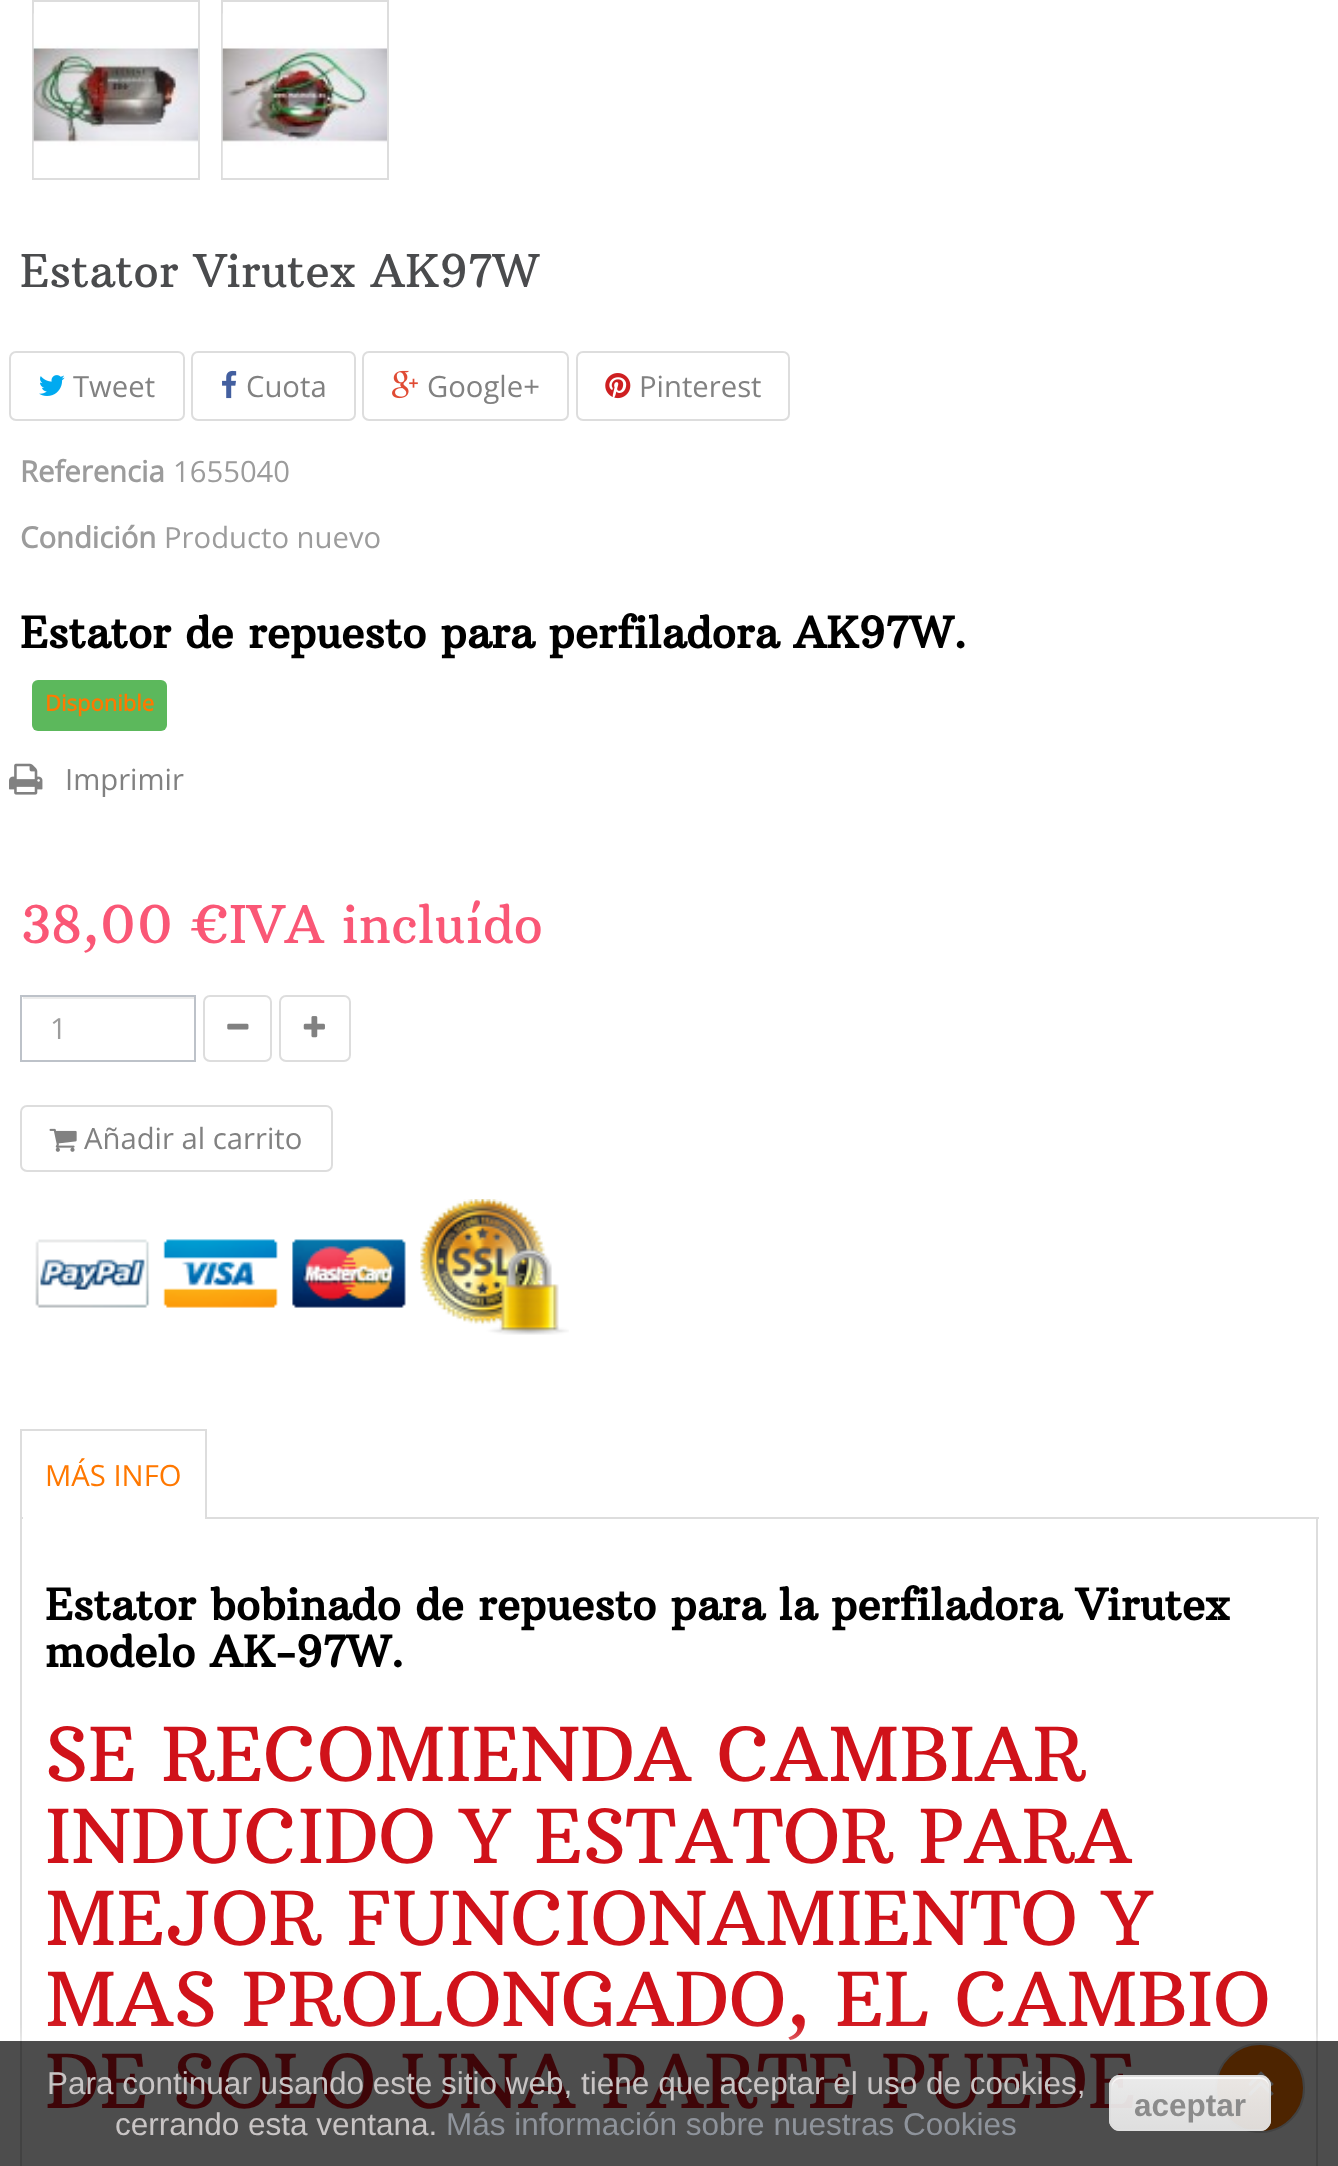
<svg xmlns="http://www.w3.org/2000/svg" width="1338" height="2166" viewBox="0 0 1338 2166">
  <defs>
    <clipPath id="clip1"><rect x="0" y="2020" width="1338" height="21"/></clipPath>
    <filter id="blur1" x="-50%" y="-200%" width="200%" height="500%"><feGaussianBlur stdDeviation="11"/></filter>
    <clipPath id="clip2"><rect x="1109" y="2075" width="162" height="56" rx="11"/></clipPath>
    <linearGradient id="g1" gradientUnits="userSpaceOnUse" x1="1112" y1="2025" x2="1112" y2="2077"><stop offset="0.05" stop-color="#f9f9f9" stop-opacity="0.7"/><stop offset="1" stop-color="#e9e9e9" stop-opacity="0.7"/></linearGradient>
    <linearGradient id="g2" gradientUnits="userSpaceOnUse" x1="1112" y1="2077" x2="1112" y2="2129"><stop offset="0.05" stop-color="#f9f9f9" stop-opacity="0.7"/><stop offset="1" stop-color="#e9e9e9" stop-opacity="0.7"/></linearGradient>
    <linearGradient id="g3" gradientUnits="userSpaceOnUse" x1="1112" y1="2129" x2="1112" y2="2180"><stop offset="0.05" stop-color="#f9f9f9" stop-opacity="0.7"/><stop offset="1" stop-color="#e9e9e9" stop-opacity="0.7"/></linearGradient>
  </defs>
  <rect width="100%" height="100%" fill="#ffffff"/>
  <rect x="0" y="2041" width="1338" height="125" fill="#4d4d4d"/>
  <rect x="33" y="1" width="166" height="178" fill="none" stroke="#dddddd" stroke-width="2"/>
  <image x="33" y="13" width="165" height="165" href="img1.png"/>
  <rect x="222" y="1" width="166" height="178" fill="none" stroke="#dddddd" stroke-width="2"/>
  <image x="222" y="13" width="165" height="165" href="img2.png"/>
  <text x="20" y="287" font-family="Arbutus Slab" font-size="45" fill="#4a4b4d">Estator Virutex AK97W</text>
  <rect x="10" y="352" width="174" height="68" rx="6" fill="none" stroke="#dddddd" stroke-width="2"/>
  <image x="39" y="375" width="26" height="21" href="img3.png"/>
  <text x="73" y="397" font-family="Open Sans" font-size="29.25" fill="#818181">Tweet</text>
  <rect x="192" y="352" width="163" height="68" rx="6" fill="none" stroke="#dddddd" stroke-width="2"/>
  <image x="222" y="370" width="15" height="29" href="img4.png"/>
  <text x="246" y="397" font-family="Open Sans" font-size="29.25" fill="#818181">Cuota</text>
  <rect x="363" y="352" width="205" height="68" rx="6" fill="none" stroke="#dddddd" stroke-width="2"/>
  <image x="392" y="370" width="26" height="29" href="img5.png"/>
  <text x="427" y="397" font-family="Open Sans" font-size="29.25" fill="#818181">Google+</text>
  <rect x="577" y="352" width="212" height="68" rx="6" fill="none" stroke="#dddddd" stroke-width="2"/>
  <image x="605" y="373" width="26" height="26" href="img6.png"/>
  <text x="639" y="397" font-family="Open Sans" font-size="29.25" fill="#818181">Pinterest</text>
  <text x="20" y="482" font-family="Open Sans" font-size="29.25" font-weight="bold" fill="#9c9c9c">Referencia</text>
  <text x="173" y="482" font-family="Open Sans" font-size="29.25" fill="#9c9c9c">1655040</text>
  <text x="20" y="548" font-family="Open Sans" font-size="29.25" font-weight="bold" fill="#9c9c9c">Condición</text>
  <text x="164" y="548" font-family="Open Sans" font-size="29.25" fill="#9c9c9c">Producto nuevo</text>
  <text x="20" y="648" font-family="Arbutus Slab" font-size="42.75" font-weight="bold" fill="#000000">Estator de repuesto para perfiladora AK97W.</text>
  <rect x="32" y="680" width="135" height="51" rx="6" fill="#5cb85c"/>
  <text x="45" y="711" font-family="Open Sans" font-size="22" font-weight="bold" fill="#ff7800">Disponible</text>
  <image x="9" y="763" width="34" height="32" href="img7.png"/>
  <text x="65" y="790" font-family="Open Sans" font-size="29.25" fill="#818181">Imprimir</text>
  <text x="20" y="943" font-family="Arbutus Slab" font-size="51.75" fill="#fa5776">38,00 €IVA incluído</text>
  <rect x="23" y="997" width="171" height="2" fill="#ececec"/>
  <rect x="21" y="996" width="174" height="65" fill="none" stroke="#bdc2c9" stroke-width="2"/>
  <text x="50" y="1039" font-family="Open Sans" font-size="29.25" fill="#9c9c9c">1</text>
  <rect x="204" y="996" width="67" height="65" rx="6" fill="none" stroke="#dddddd" stroke-width="2"/>
  <image x="227" y="1023" width="22" height="7" href="img8.png"/>
  <rect x="280" y="996" width="70" height="65" rx="6" fill="none" stroke="#dddddd" stroke-width="2"/>
  <image x="303" y="1016" width="22" height="22" href="img9.png"/>
  <rect x="21" y="1106" width="311" height="65" rx="6" fill="none" stroke="#dddddd" stroke-width="2"/>
  <image x="49" y="1128" width="28" height="24" href="img10.png"/>
  <text x="84" y="1149" font-family="Open Sans" font-size="29.25" fill="#818181">Añadir al carrito</text>
  <image x="35" y="1199" width="534" height="136" href="img11.png"/>
  <rect x="20" y="1517" width="1299" height="2" fill="#dddddd"/>
  <rect x="20" y="1429" width="187" height="2" fill="#dddddd"/>
  <rect x="205" y="1429" width="2" height="90" fill="#dddddd"/>
  <rect x="20" y="1429" width="2" height="90" fill="#dddddd"/>
  <rect x="23" y="1517" width="182" height="2" fill="#ffffff"/>
  <text x="45" y="1486" font-family="Open Sans" font-size="29.25" fill="#ff7800">MÁS INFO</text>
  <rect x="1316" y="1519" width="2" height="522" fill="#dddddd"/>
  <rect x="1316" y="2041" width="2" height="125" fill="#424242"/>
  <rect x="20" y="1519" width="2" height="522" fill="#dddddd"/>
  <rect x="20" y="2041" width="2" height="125" fill="#424242"/>
  <text x="45" y="1620" font-family="Arbutus Slab" font-size="42.75" font-weight="bold" fill="#000000">Estator bobinado de repuesto para la perfiladora Virutex</text>
  <text x="45" y="1667" font-family="Arbutus Slab" font-size="42.75" font-weight="bold" fill="#000000">modelo AK-97W.</text>
  <text x="45" y="1781" font-family="Arbutus Slab" font-size="74.25" fill="#d0121a">SE RECOMIENDA CAMBIAR</text>
  <text x="45" y="1863" font-family="Arbutus Slab" font-size="74.25" fill="#d0121a">INDUCIDO Y ESTATOR PARA</text>
  <text x="45" y="1945" font-family="Arbutus Slab" font-size="74.25" fill="#d0121a">MEJOR FUNCIONAMIENTO Y</text>
  <text x="45" y="2026" font-family="Arbutus Slab" font-size="74.25" fill="#d0121a">MAS PROLONGADO, EL CAMBIO</text>
  <text x="45" y="2108" font-family="Arbutus Slab" font-size="74.25" fill="#3e0508">DE SOLO UNA PARTE PUEDE</text>
  <circle cx="1260" cy="2088" r="44" fill="#4d2400" stroke="#424242" stroke-width="2"/>
  <image x="1248" y="2071" width="26" height="25" href="img12.png"/>
  <g clip-path="url(#clip1)">
    <rect x="0" y="2041" width="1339" height="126" fill="#ffffff" fill-opacity="0.7" filter="url(#blur1)"/>
  </g>
  <text x="47" y="2094" font-family="Liberation Sans" font-size="31.5" fill="#c8c4c4">Para continuar usando este sitio web, tiene que aceptar el uso de cookies,</text>
  <text x="115" y="2135" font-family="Liberation Sans" font-size="31.5" fill="#c8c4c4">cerrando esta ventana.</text>
  <text x="446" y="2135" font-family="Liberation Sans" font-size="31.5" fill="#8e939b">Más información sobre nuestras Cookies</text>
  <rect x="1109" y="2075" width="162" height="56" rx="11" fill="#f9f9f9" fill-opacity="0.7"/>
  <g clip-path="url(#clip2)">
    <rect x="1109" y="2075" width="162" height="2" fill="url(#g1)"/>
    <rect x="1109" y="2077" width="162" height="52" fill="url(#g2)"/>
    <rect x="1109" y="2129" width="162" height="2" fill="url(#g3)"/>
  </g>
  <path d="M1120 2079H1260C1265 2079 1269 2083 1269 2088V2086C1269 2081 1265 2077 1260 2077H1121C1116 2077 1112 2081 1112 2086V2088C1112 2083 1116 2079 1120 2079Z" fill="#ffffff" fill-opacity="0.7"/>
  <rect x="1110" y="2076" width="160" height="54" rx="10" fill="none" stroke="#dcdcdc" stroke-opacity="0.7" stroke-width="2"/>
  <text x="1134" y="2116" font-family="Liberation Sans" font-size="31.5" font-weight="bold" fill="#8b8b8b">aceptar</text>
</svg>
